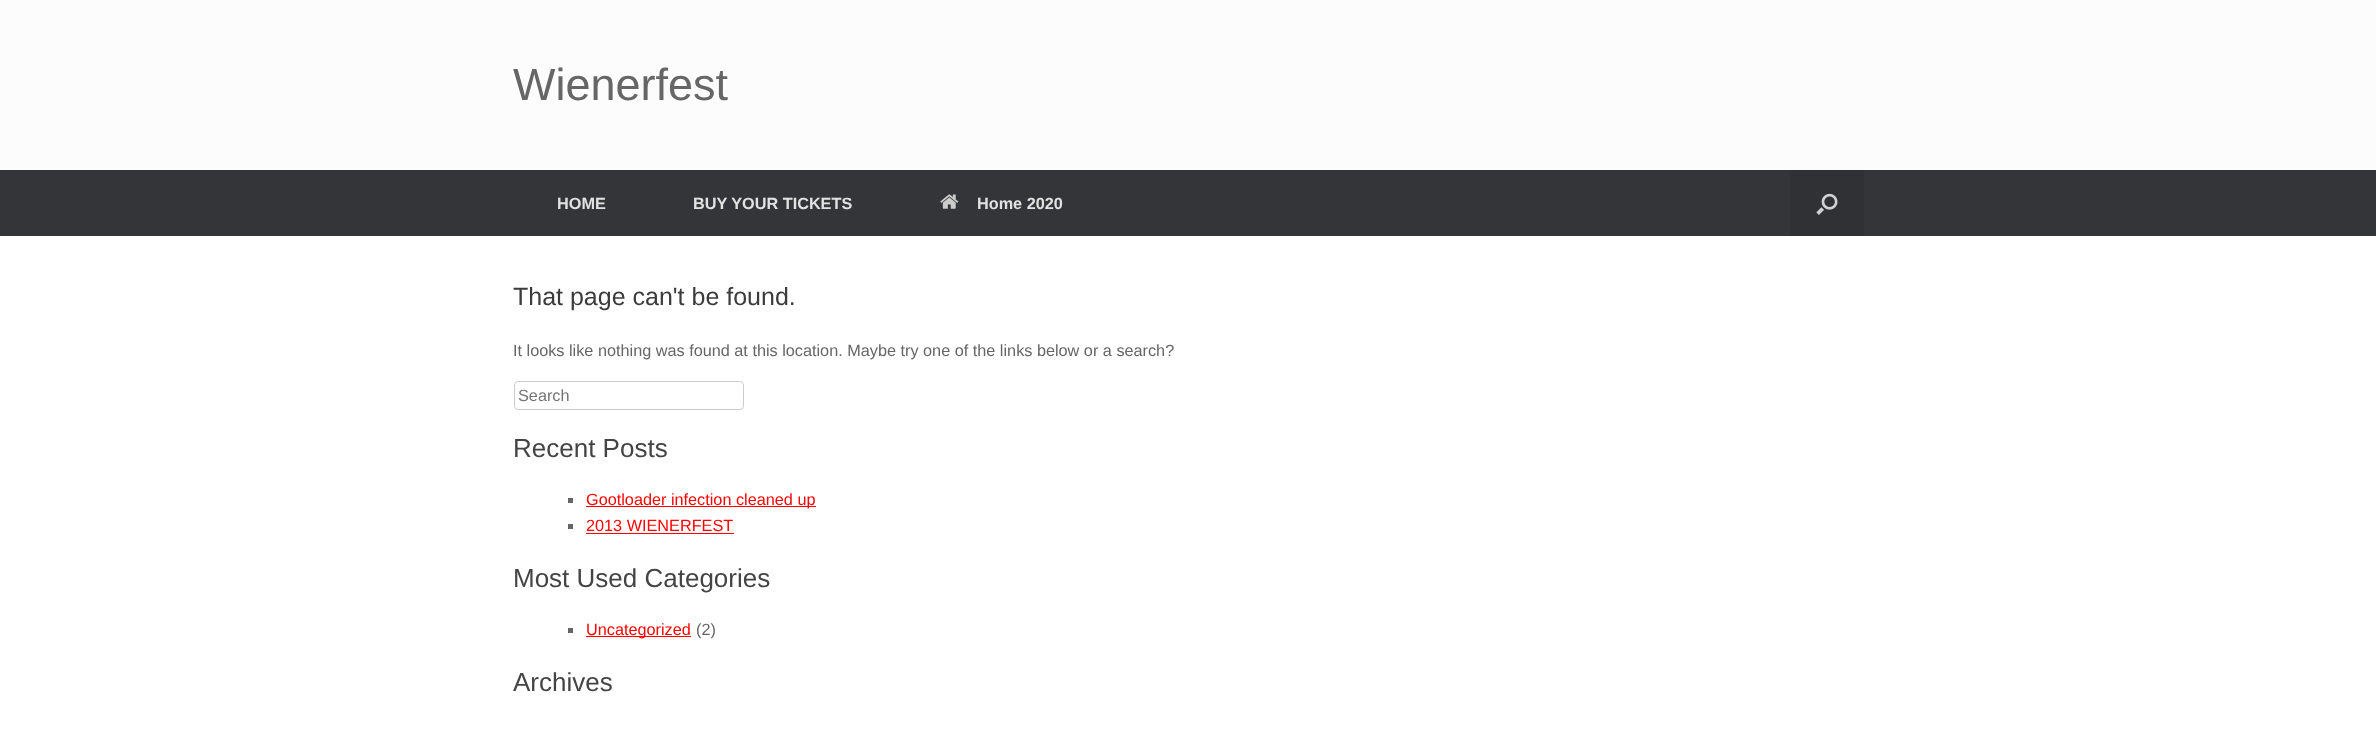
<svg xmlns="http://www.w3.org/2000/svg" width="2376" height="734" viewBox="0 0 2376 734">
  <rect width="100%" height="100%" fill="#ffffff"/>
  <rect x="0" y="0" width="2376" height="170" fill="#fcfcfc"/>
  <text x="513" y="100" font-family="Liberation Sans" font-size="45" fill="#666666">Wienerfest</text>
  <rect x="0" y="170" width="2376" height="66" fill="#343538"/>
  <text x="557" y="209" font-family="Liberation Sans" font-size="16.25" font-weight="bold" fill="#e2e2e2">HOME</text>
  <text x="693" y="209" font-family="Liberation Sans" font-size="16.25" font-weight="bold" fill="#e2e2e2">BUY YOUR TICKETS</text>
  <image x="940" y="194" width="19" height="15" href="img1.png"/>
  <text x="977" y="209" font-family="Liberation Sans" font-size="16.25" font-weight="bold" fill="#e2e2e2">Home 2020</text>
  <rect x="1790" y="170" width="74" height="66" fill="#303134"/>
  <image x="1816" y="193" width="22" height="22" href="img2.png"/>
  <text x="513" y="305" font-family="Liberation Sans" font-size="25" fill="#3b3b3b">That page can't be found.</text>
  <text x="513" y="356" font-family="Liberation Sans" font-size="16.25" fill="#666666">It looks like nothing was found at this location. Maybe try one of the links below or a search?</text>
  <rect x="514.5" y="381.5" width="229" height="28" rx="3.5" fill="none" stroke="#cccccc"/>
  <text x="518" y="401" font-family="Liberation Sans" font-size="16.25" fill="#757575">Search</text>
  <text x="513" y="457" font-family="Liberation Sans" font-size="26" fill="#444444">Recent Posts</text>
  <rect x="568" y="498" width="5" height="5" fill="#666666"/>
  <rect x="586" y="506" width="230" height="1" fill="#ff0000"/>
  <text x="586" y="505" font-family="Liberation Sans" font-size="16.25" fill="#ff0000">Gootloader infection cleaned up</text>
  <rect x="568" y="524" width="5" height="5" fill="#666666"/>
  <text x="586" y="531" font-family="Liberation Sans" font-size="16.25" fill="#ff0000">2013 WIENERFEST</text>
  <rect x="586" y="533" width="148" height="1" fill="#ff0000"/>
  <text x="513" y="587" font-family="Liberation Sans" font-size="26" fill="#444444">Most Used Categories</text>
  <rect x="568" y="628" width="5" height="5" fill="#666666"/>
  <rect x="586" y="636" width="105" height="1" fill="#ff0000"/>
  <text x="586" y="635" font-family="Liberation Sans" font-size="16.25" fill="#ff0000">Uncategorized</text>
  <text x="696" y="635" font-family="Liberation Sans" font-size="16.25" fill="#666666">(2)</text>
  <text x="513" y="691" font-family="Liberation Sans" font-size="26" fill="#444444">Archives</text>
</svg>
